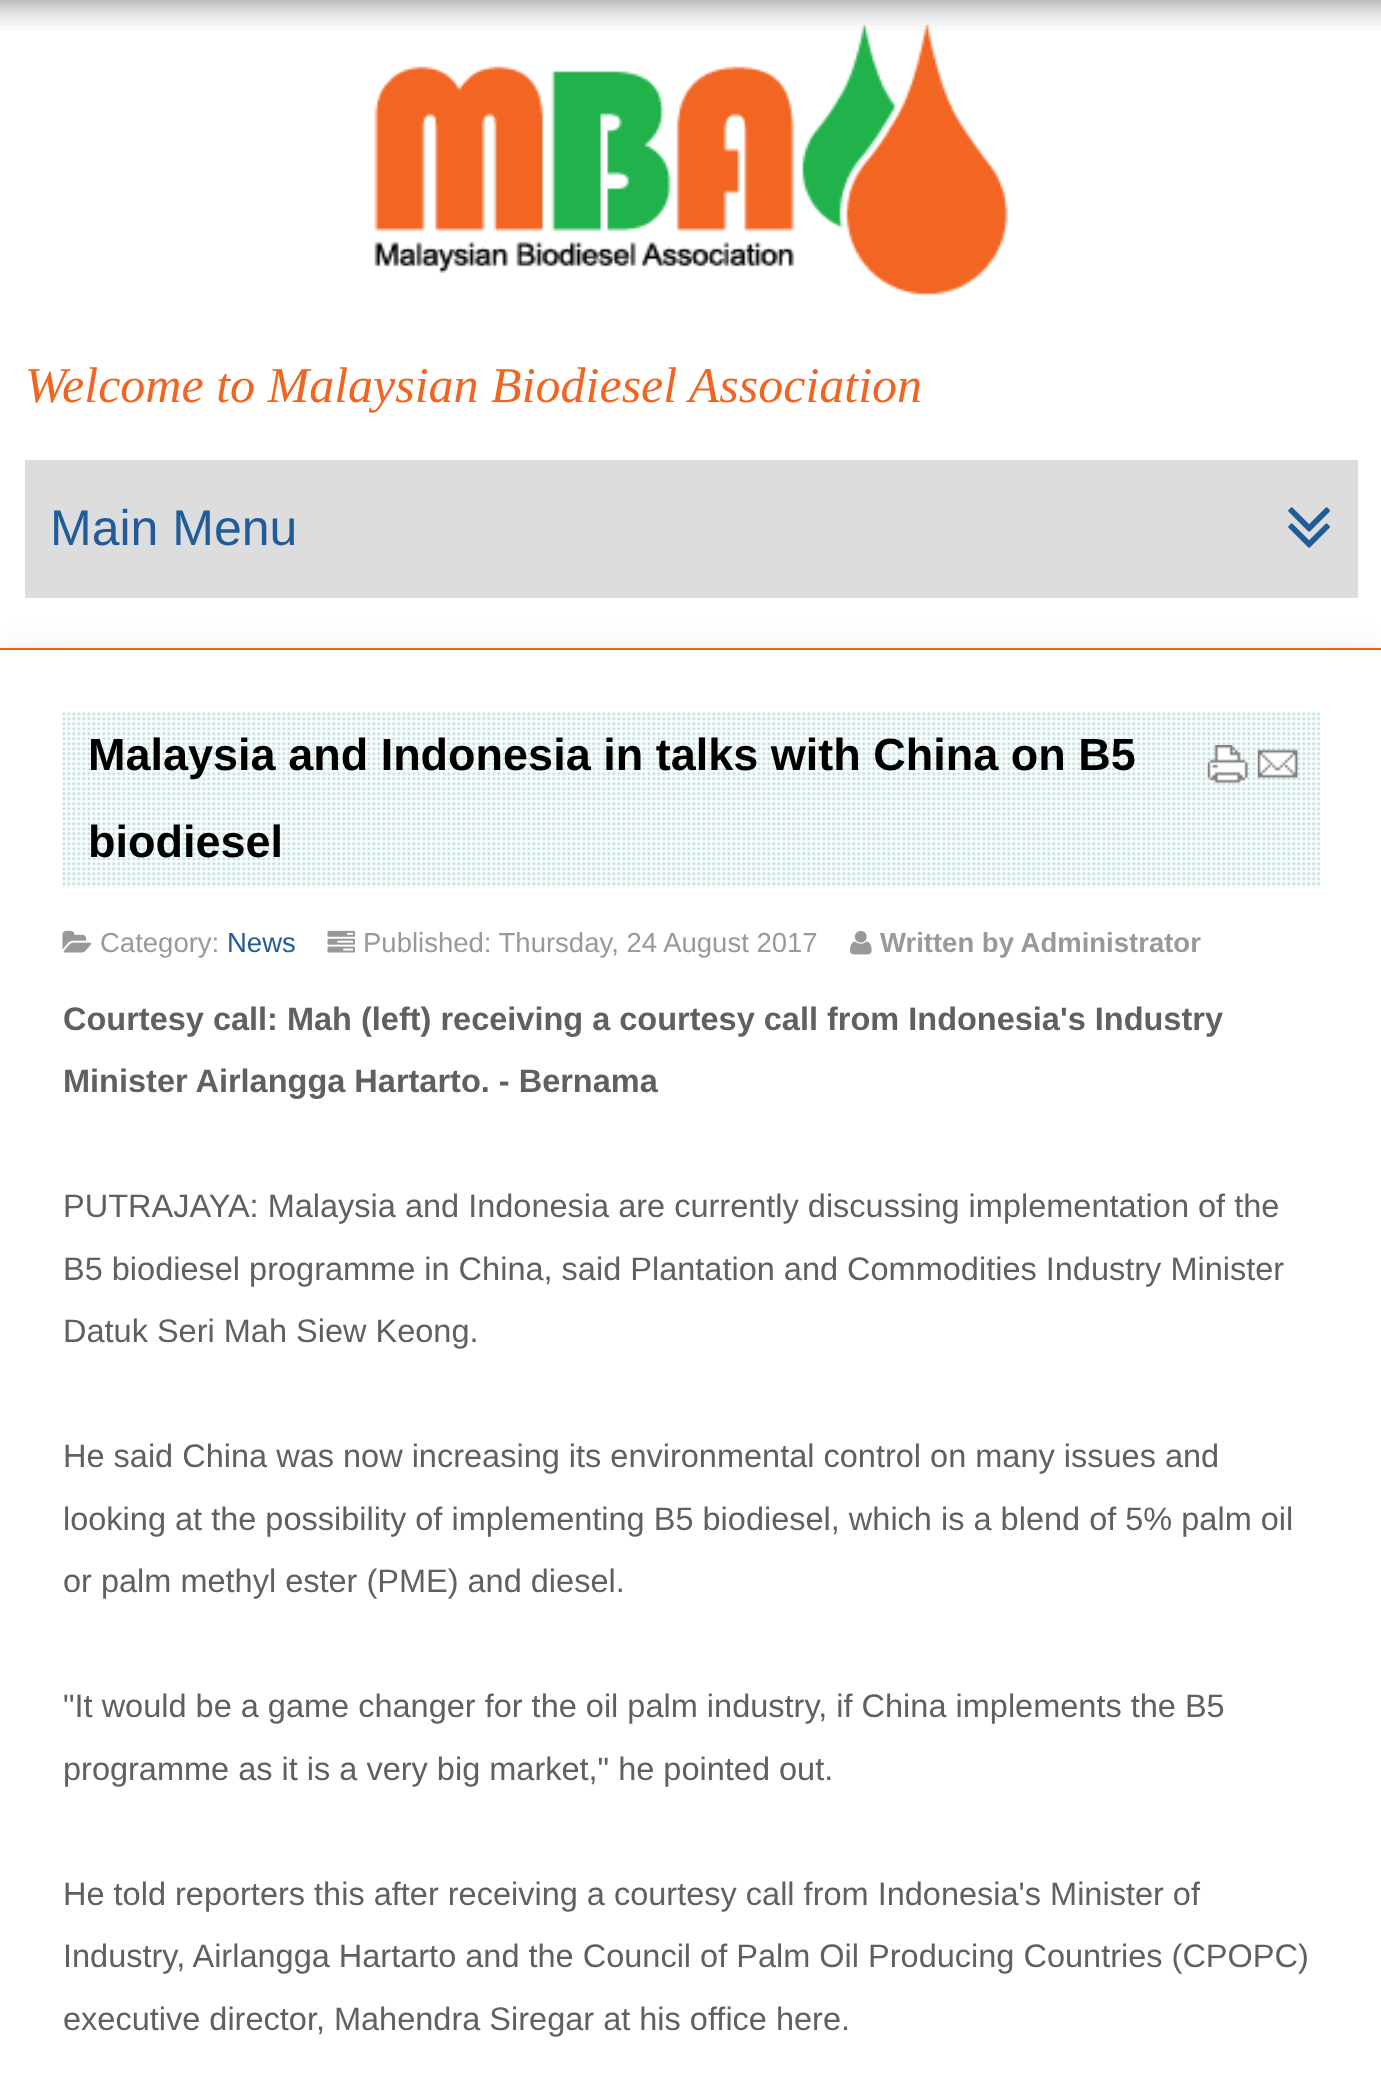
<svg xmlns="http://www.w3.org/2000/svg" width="1381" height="2097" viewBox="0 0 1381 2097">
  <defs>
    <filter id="blur1" x="-50%" y="-200%" width="200%" height="500%"><feGaussianBlur stdDeviation="25"/></filter>
  </defs>
  <rect width="100%" height="100%" fill="#ffffff"/>
  <image x="0" y="0" width="1381" height="31" href="img1.png"/>
  <rect x="0" y="648" width="1381" height="2" fill="#f16521"/>
  <image x="374" y="25" width="635" height="270" href="img2.png"/>
  <text x="25" y="402" font-family="Liberation Serif" font-size="50" font-style="italic" fill="#f16521">Welcome to Malaysian Biodiesel Association</text>
  <rect x="25" y="460" width="1333" height="138" fill="#dddddd"/>
  <text x="50" y="545" font-family="Liberation Sans" font-size="50" fill="#1f5c99">Main Menu</text>
  <image x="1288" y="507" width="42" height="41" href="img3.png"/>
  <rect x="0" y="675" width="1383" height="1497" fill="#000000" fill-opacity="0.3" filter="url(#blur1)"/>
  <rect x="0" y="650" width="1381" height="1447" fill="#ffffff"/>
  <image x="62" y="712" width="1258" height="176" href="img4.png"/>
  <text x="88" y="770" font-family="Liberation Sans" font-size="45" font-weight="bold" fill="#000000">Malaysia and Indonesia in talks with China on B5</text>
  <text x="88" y="857" font-family="Liberation Sans" font-size="45" font-weight="bold" fill="#000000">biodiesel</text>
  <image x="1207" y="745" width="41" height="39" href="img5.png"/>
  <image x="1257" y="749" width="41" height="30" href="img6.png"/>
  <image x="62" y="930" width="30" height="23" href="img7.png"/>
  <text x="100" y="952" font-family="Liberation Sans" font-size="27.5" fill="#999999">Category:</text>
  <text x="227" y="952" font-family="Liberation Sans" font-size="27.5" fill="#1f5c99">News</text>
  <image x="327" y="930" width="28" height="23" href="img8.png"/>
  <text x="363" y="952" font-family="Liberation Sans" font-size="27.5" fill="#999999">Published: Thursday, 24 August 2017</text>
  <image x="850" y="930" width="22" height="25" href="img9.png"/>
  <text x="880" y="952" font-family="Liberation Sans" font-size="27.5" font-weight="bold" fill="#999999">Written by Administrator</text>
  <text x="63" y="1030" font-family="Liberation Sans" font-size="32.5" font-weight="bold" fill="#606060">Courtesy call: Mah (left) receiving a courtesy call from Indonesia's Industry</text>
  <text x="63" y="1092" font-family="Liberation Sans" font-size="32.5" font-weight="bold" fill="#606060">Minister Airlangga Hartarto. - Bernama</text>
  <text x="63" y="1217" font-family="Liberation Sans" font-size="32.5" fill="#606060">PUTRAJAYA: Malaysia and Indonesia are currently discussing implementation of the</text>
  <text x="63" y="1280" font-family="Liberation Sans" font-size="32.5" fill="#606060">B5 biodiesel programme in China, said Plantation and Commodities Industry Minister</text>
  <text x="63" y="1342" font-family="Liberation Sans" font-size="32.5" fill="#606060">Datuk Seri Mah Siew Keong.</text>
  <text x="63" y="1467" font-family="Liberation Sans" font-size="32.5" fill="#606060">He said China was now increasing its environmental control on many issues and</text>
  <text x="63" y="1530" font-family="Liberation Sans" font-size="32.5" fill="#606060">looking at the possibility of implementing B5 biodiesel, which is a blend of 5% palm oil</text>
  <text x="63" y="1592" font-family="Liberation Sans" font-size="32.5" fill="#606060">or palm methyl ester (PME) and diesel.</text>
  <text x="63" y="1717" font-family="Liberation Sans" font-size="32.5" fill="#606060">"It would be a game changer for the oil palm industry, if China implements the B5</text>
  <text x="63" y="1780" font-family="Liberation Sans" font-size="32.5" fill="#606060">programme as it is a very big market," he pointed out.</text>
  <text x="63" y="1905" font-family="Liberation Sans" font-size="32.5" fill="#606060">He told reporters this after receiving a courtesy call from Indonesia's Minister of</text>
  <text x="63" y="1967" font-family="Liberation Sans" font-size="32.5" fill="#606060">Industry, Airlangga Hartarto and the Council of Palm Oil Producing Countries (CPOPC)</text>
  <text x="63" y="2030" font-family="Liberation Sans" font-size="32.5" fill="#606060">executive director, Mahendra Siregar at his office here.</text>
</svg>
